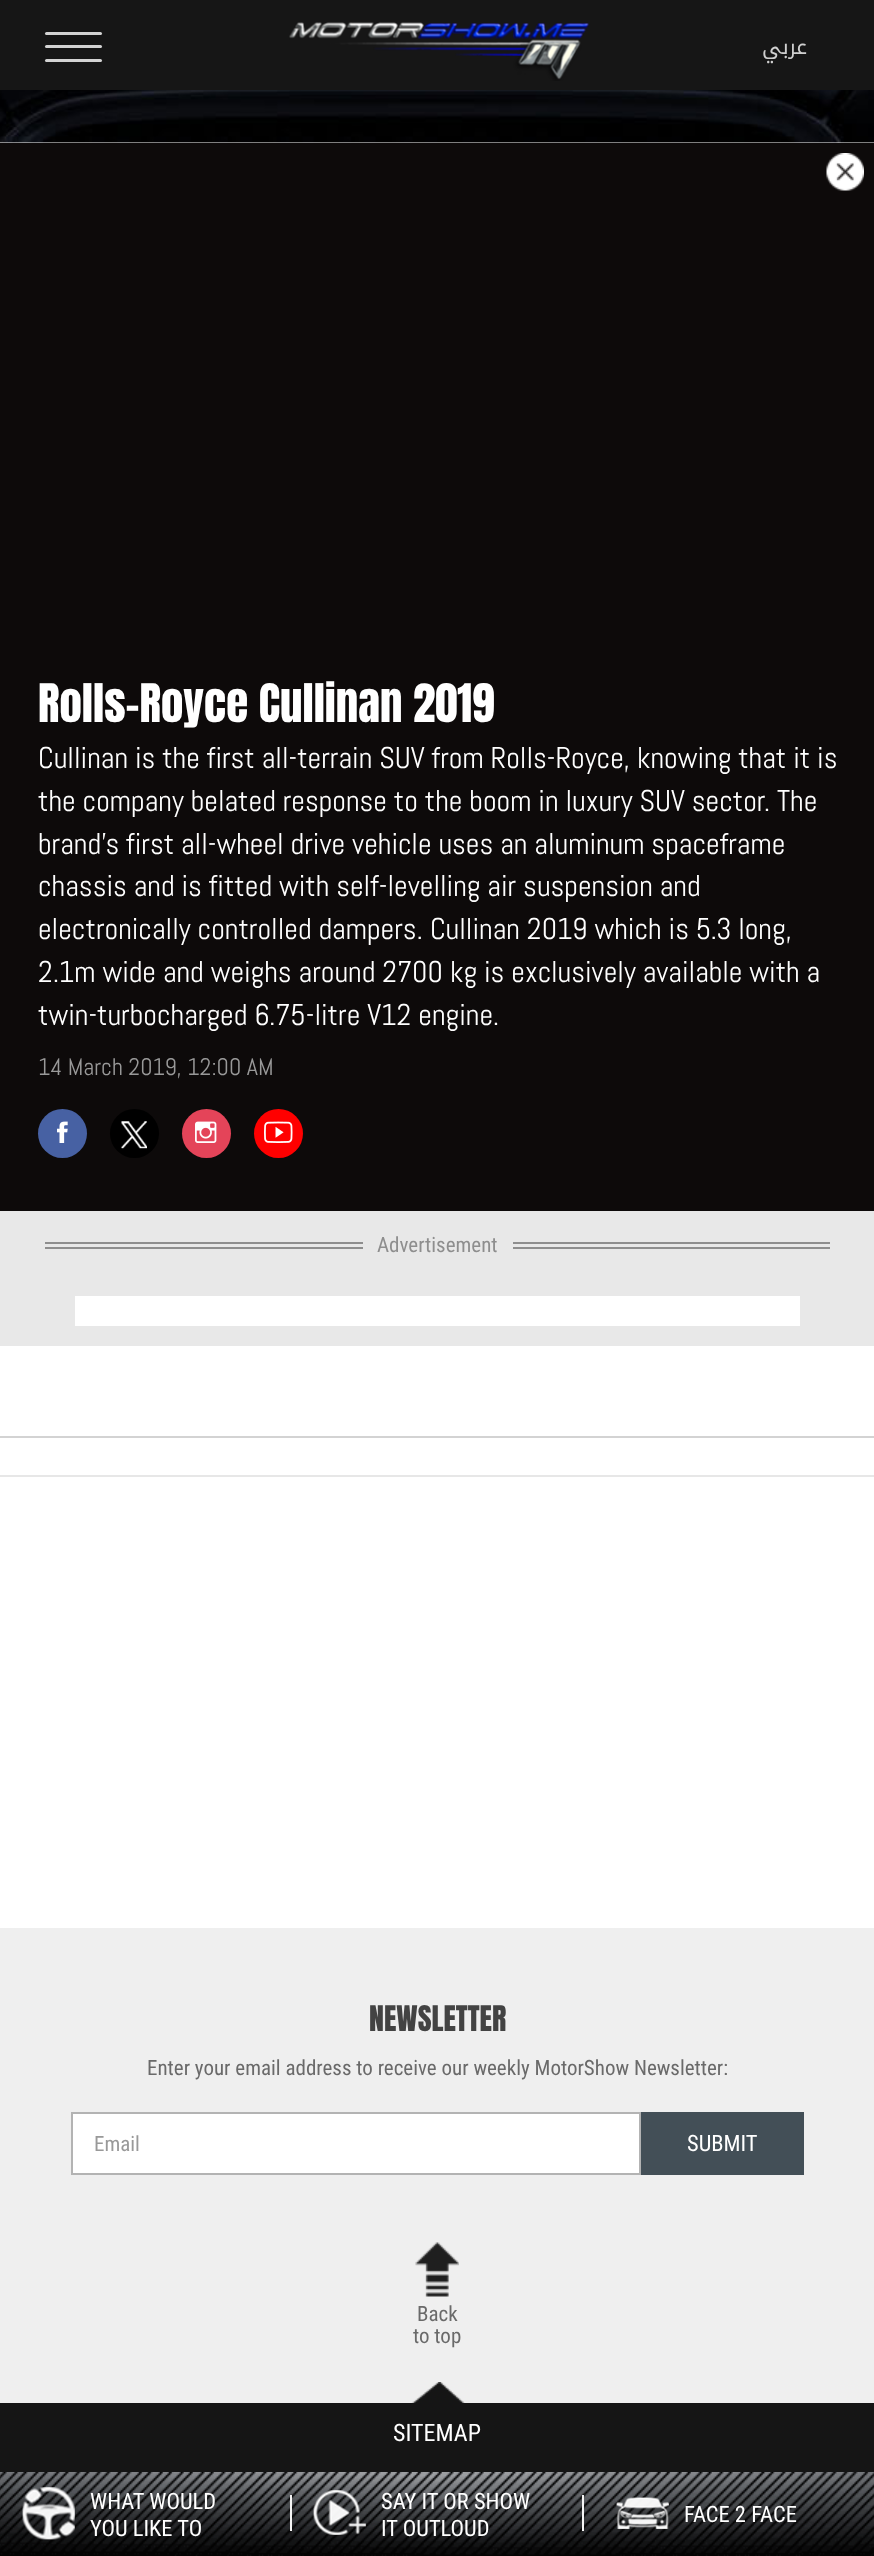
<svg xmlns="http://www.w3.org/2000/svg" width="874" height="2556" viewBox="0 0 874 2556">
  <rect width="100%" height="100%" fill="#ffffff"/>
  <rect x="0" y="0" width="874" height="90" fill="#161616"/>
  <rect x="45" y="32" width="57" height="3" rx="1.5" fill="#d3d3d3"/>
  <rect x="45" y="45" width="57" height="3" rx="1.5" fill="#d3d3d3"/>
  <rect x="45" y="59" width="57" height="3" rx="1.5" fill="#d3d3d3"/>
  <image x="289" y="22" width="300" height="59" href="img1.png"/>
  <text x="807" y="54" font-family="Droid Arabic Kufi" font-size="21" direction="rtl" fill="#cfcfcf">عربي</text>
  <image x="0" y="90" width="874" height="53" href="img2.png"/>
  <rect x="0" y="143" width="874" height="1068" fill="#0d0a0a"/>
  <image x="826" y="153" width="38" height="38" href="img3.png"/>
  <text x="38" y="722" font-family="Anton" font-size="45" fill="#ffffff">Rolls-Royce Cullinan 2019</text>
  <text x="38" y="768" font-family="Abel" font-size="30" fill="#ffffff">Cullinan is the first all-terrain SUV from Rolls-Royce, knowing that it is</text>
  <text x="38" y="811" font-family="Abel" font-size="30" fill="#ffffff">the company belated response to the boom in luxury SUV sector. The</text>
  <text x="38" y="854" font-family="Abel" font-size="30" fill="#ffffff">brand’s first all-wheel drive vehicle uses an aluminum spaceframe</text>
  <text x="38" y="896" font-family="Abel" font-size="30" fill="#ffffff">chassis and is fitted with self-levelling air suspension and</text>
  <text x="38" y="939" font-family="Abel" font-size="30" fill="#ffffff">electronically controlled dampers. Cullinan 2019 which is 5.3 long,</text>
  <text x="38" y="982" font-family="Abel" font-size="30" fill="#ffffff">2.1m wide and weighs around 2700 kg is exclusively available with a</text>
  <text x="38" y="1025" font-family="Abel" font-size="30" fill="#ffffff">twin-turbocharged 6.75-litre V12 engine.</text>
  <text x="38" y="1075" font-family="Abel" font-size="24" fill="#999999">14 March 2019, 12:00 AM</text>
  <circle cx="62.5" cy="1133.5" r="24.5" fill="#4761a3"/>
  <image x="57" y="1121" width="11" height="22" href="img4.png"/>
  <circle cx="134.5" cy="1133.5" r="24.5" fill="#000000"/>
  <image x="121" y="1121" width="26" height="28" href="img5.png"/>
  <circle cx="206.5" cy="1133.5" r="24.5" fill="#e44459"/>
  <image x="195" y="1121" width="22" height="22" href="img6.png"/>
  <circle cx="278.5" cy="1133.5" r="24.5" fill="#ff0000"/>
  <image x="264" y="1121" width="29" height="22" href="img7.png"/>
  <rect x="0" y="1211" width="874" height="135" fill="#e8e8e8"/>
  <rect x="45" y="1242" width="785" height="2" fill="#8e8e8e"/>
  <rect x="45" y="1247" width="785" height="2" fill="#8e8e8e"/>
  <rect x="363" y="1242" width="150" height="7" fill="#e8e8e8"/>
  <text x="377" y="1252" font-family="Roboto Condensed" font-size="21" fill="#8e8e8e">Advertisement</text>
  <rect x="75" y="1296" width="725" height="30" fill="#ffffff"/>
  <rect x="0" y="1436" width="874" height="2" fill="#d3d3d3"/>
  <rect x="0" y="1475" width="874" height="2" fill="#e7e7e7"/>
  <rect x="0" y="1928" width="874" height="475" fill="#efefef"/>
  <text x="369" y="2031" font-family="Anton" font-size="30" fill="#434343">NEWSLETTER</text>
  <text x="147" y="2075" font-family="Roboto Condensed" font-size="21" fill="#6a6a6a">Enter your email address to receive our weekly MotorShow Newsletter:</text>
  <rect x="72" y="2113" width="568" height="61" fill="#ffffff" stroke="#b3b3b3" stroke-width="2"/>
  <text x="94" y="2151" font-family="Roboto Condensed" font-size="21" fill="#999999">Email</text>
  <rect x="641" y="2112" width="163" height="63" fill="#434f57"/>
  <text x="687" y="2151" font-family="Roboto Condensed" font-size="22.5" fill="#ffffff">SUBMIT</text>
  <image x="415" y="2242" width="44" height="55" href="img8.png"/>
  <text x="417" y="2321" font-family="Roboto Condensed" font-size="21" fill="#6a6a6a">Back</text>
  <text x="413" y="2343" font-family="Roboto Condensed" font-size="21" fill="#6a6a6a">to top</text>
  <rect x="0" y="2403" width="874" height="69" fill="#151515"/>
  <image x="411" y="2382" width="54" height="21" href="img9.png"/>
  <text x="393" y="2441" font-family="Roboto Condensed" font-size="24" fill="#ffffff">SITEMAP</text>
  <image x="0" y="2472" width="874" height="84" href="img10.png"/>
  <image x="22" y="2487" width="53" height="53" href="img11.png"/>
  <text x="90" y="2509" font-family="Roboto Condensed" font-size="22.5" fill="#ffffff">WHAT WOULD</text>
  <text x="90" y="2536" font-family="Roboto Condensed" font-size="22.5" fill="#ffffff">YOU LIKE TO</text>
  <rect x="290" y="2495" width="2" height="36" fill="#f5f5f5"/>
  <image x="313" y="2490" width="53" height="45" href="img12.png"/>
  <text x="381" y="2509" font-family="Roboto Condensed" font-size="22.5" fill="#ffffff">SAY IT OR SHOW</text>
  <text x="381" y="2536" font-family="Roboto Condensed" font-size="22.5" fill="#ffffff">IT OUTLOUD</text>
  <rect x="582" y="2495" width="2" height="36" fill="#f5f5f5"/>
  <image x="616" y="2497" width="53" height="32" href="img13.png"/>
  <text x="684" y="2522" font-family="Roboto Condensed" font-size="22.5" fill="#ffffff">FACE 2 FACE</text>
</svg>
